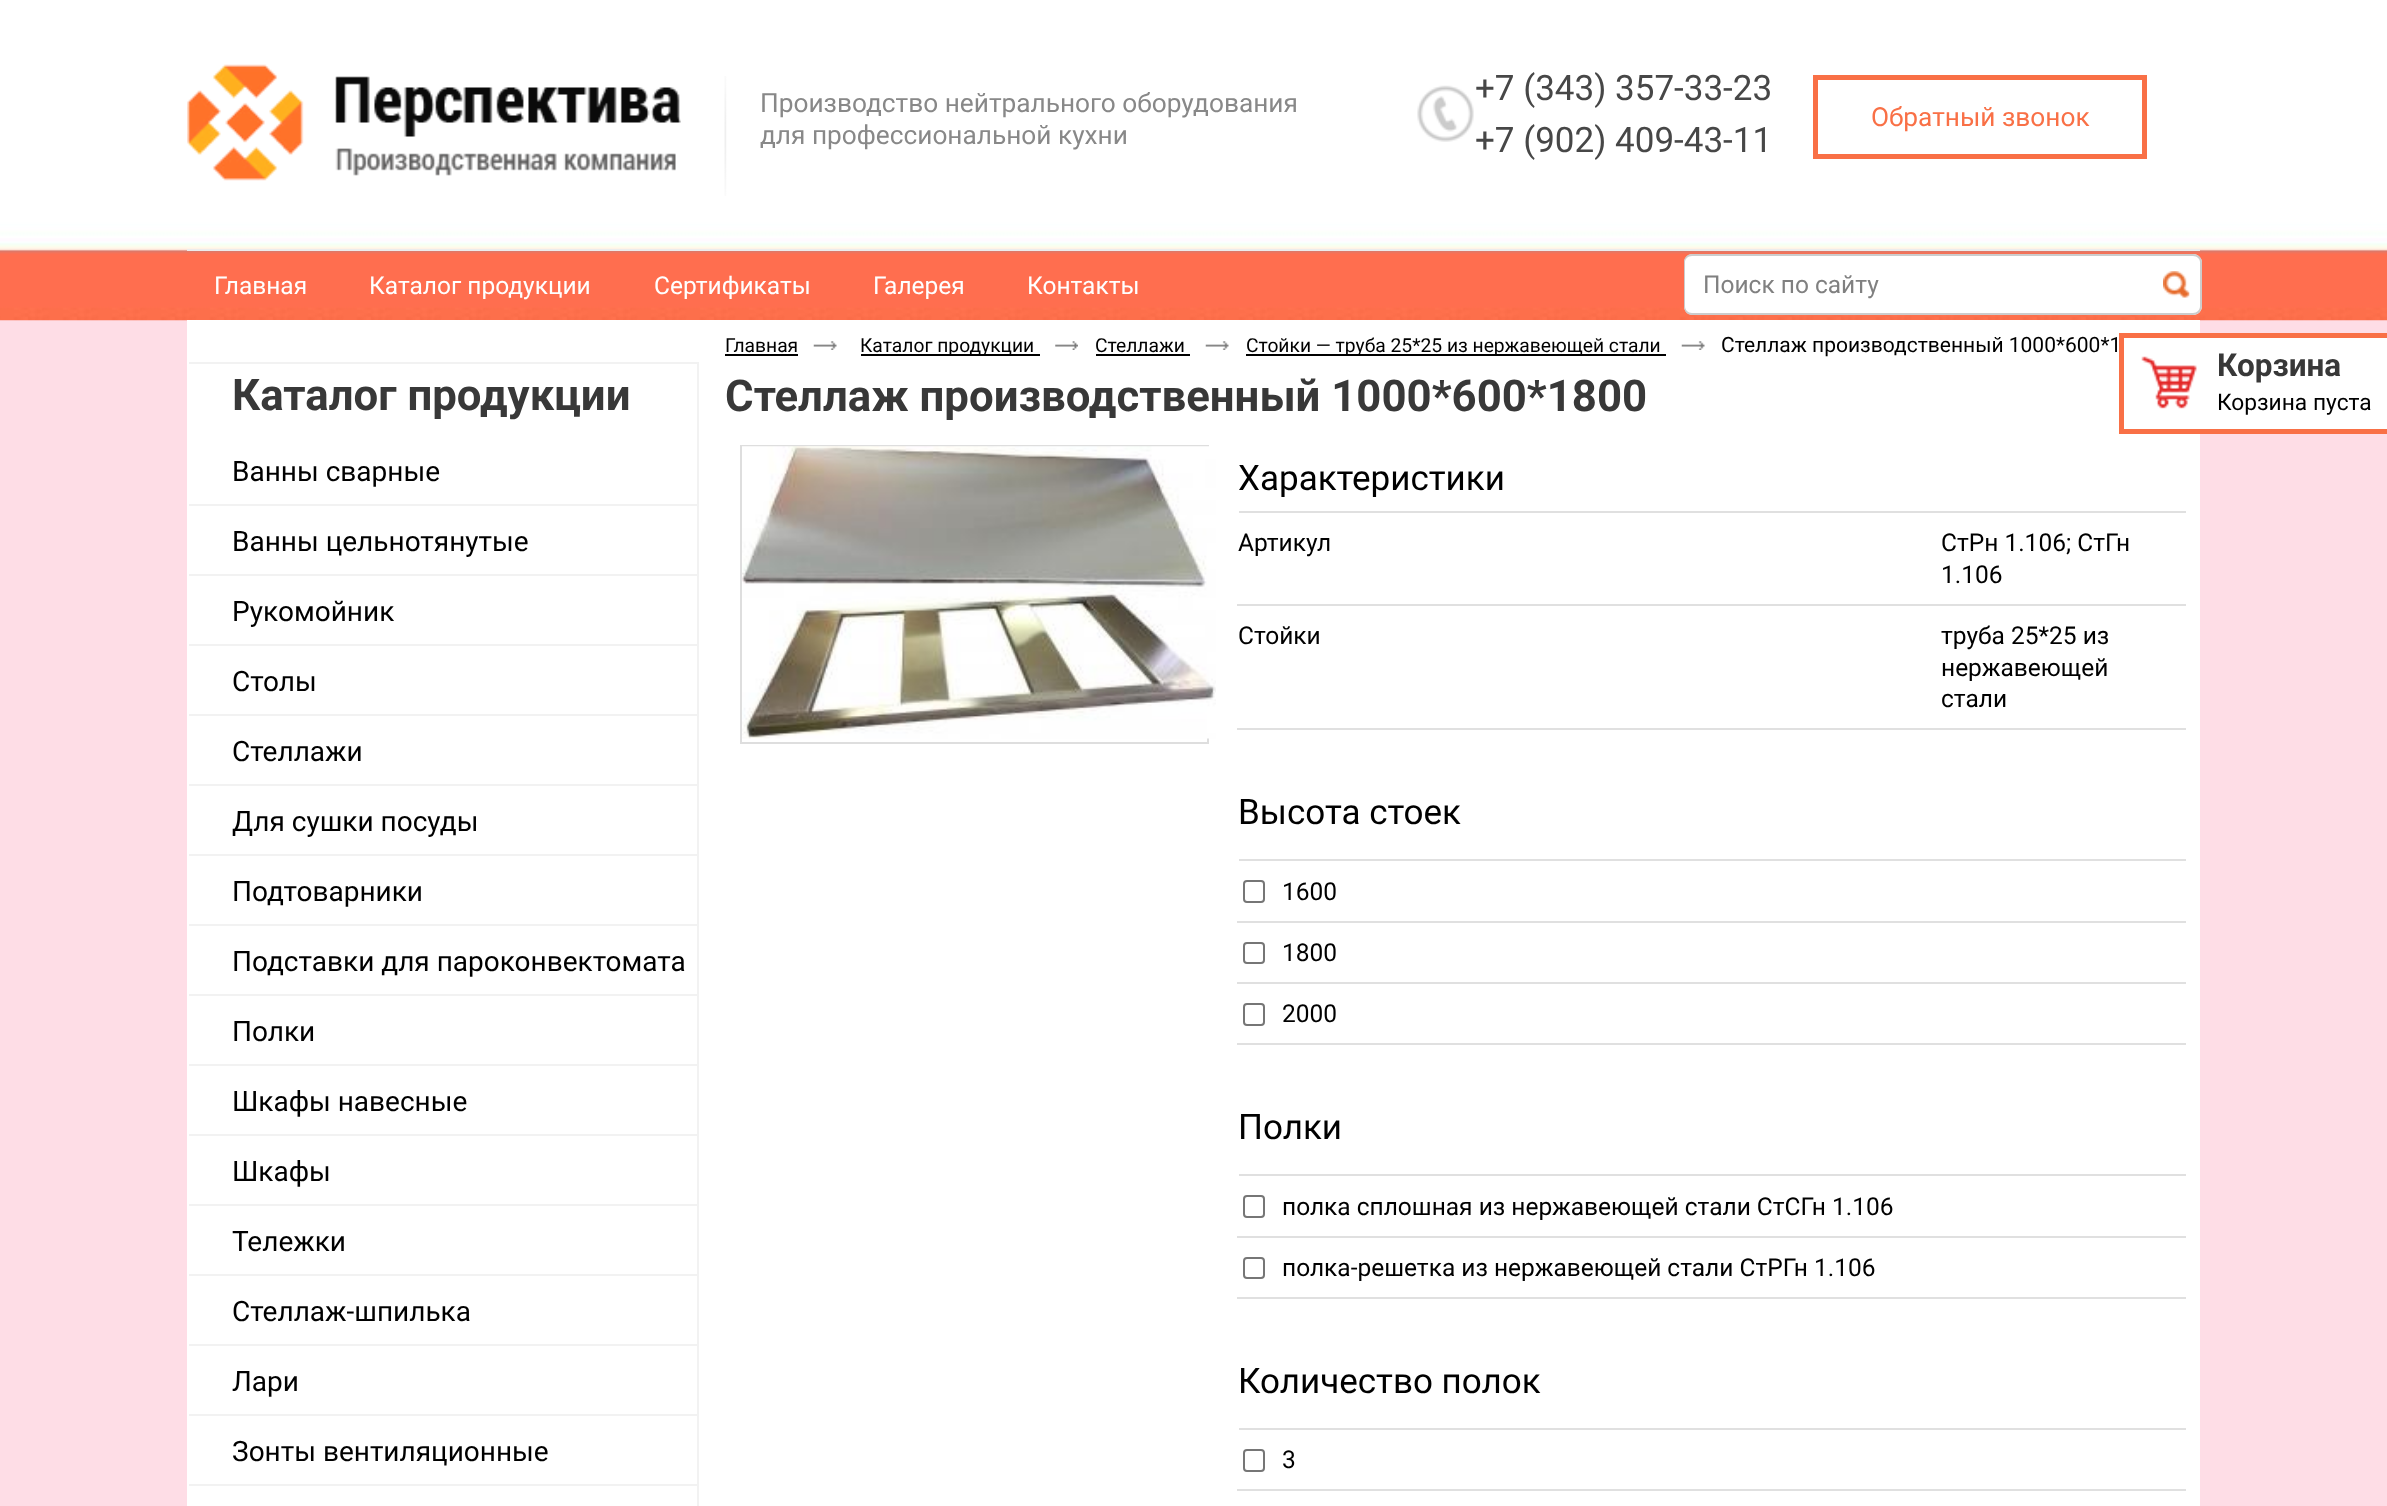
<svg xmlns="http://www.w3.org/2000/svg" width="2387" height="1506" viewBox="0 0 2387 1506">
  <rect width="100%" height="100%" fill="#fedde6"/>
  <image x="0" y="0" width="2387" height="321" href="img1.png"/>
  <image x="187" y="64" width="494" height="117" href="img2.png"/>
  <image x="724" y="76" width="3" height="120" href="img3.png"/>
  <text x="760" y="112" font-family="Roboto" font-size="26.25" fill="#888888">Производство нейтрального оборудования</text>
  <text x="760" y="144" font-family="Roboto" font-size="26.25" fill="#888888">для профессиональной кухни</text>
  <image x="1417" y="85" width="57" height="57" href="img4.png"/>
  <text x="1475" y="100" font-family="Roboto" font-size="35" fill="#474747">+7 (343) 357-33-23</text>
  <text x="1475" y="152" font-family="Roboto" font-size="35" fill="#474747">+7 (902) 409-43-11</text>
  <rect x="1815.5" y="77.5" width="329" height="79" fill="none" stroke="#f97046" stroke-width="5"/>
  <text x="1871" y="126" font-family="Roboto" font-size="26.25" fill="#f97046">Обратный звонок</text>
  <rect x="187" y="249" width="2013" height="2" fill="#ececec"/>
  <text x="214" y="294" font-family="Roboto" font-size="24.5" fill="#ffffff">Главная</text>
  <text x="369" y="294" font-family="Roboto" font-size="24.5" fill="#ffffff">Каталог продукции</text>
  <text x="654" y="294" font-family="Roboto" font-size="24.5" fill="#ffffff">Сертификаты</text>
  <text x="873" y="294" font-family="Roboto" font-size="24.5" fill="#ffffff">Галерея</text>
  <text x="1027" y="294" font-family="Roboto" font-size="24.5" fill="#ffffff">Контакты</text>
  <path d="M1693 254H2156V315H1693C1688 315 1684 311 1684 306V263C1684 258 1688 254 1693 254Z" fill="#ffffff"/>
  <path d="M1692 254H2156V315H1692C1687 315 1684 311 1684 306V262C1684 258 1687 254 1692 254ZM1692 256H2156V313H1692C1688 313 1685 310 1685 306V262C1685 259 1688 256 1692 256Z" fill="#cccccc" fill-rule="evenodd"/>
  <text x="1703" y="293" font-family="Roboto" font-size="24.5" fill="#808080">Поиск по сайту</text>
  <path d="M2156 254H2193C2198 254 2202 258 2202 263V306C2202 311 2198 315 2193 315H2156Z" fill="#ffffff"/>
  <image x="2163" y="271" width="27" height="27" href="img5.png"/>
  <path d="M2156 254H2193C2198 254 2202 258 2202 262V306C2202 311 2198 315 2193 315H2156ZM2156 256H2193C2197 256 2200 259 2200 262V306C2200 310 2197 313 2193 313H2156Z" fill="#cccccc" fill-rule="evenodd"/>
  <rect x="2200" y="338" width="187" height="91" fill="#ffffff"/>
  <rect x="187" y="320" width="2013" height="1186" fill="#ffffff"/>
  <image x="2141" y="356" width="56" height="53" href="img6.png"/>
  <rect x="2119" y="333" width="268" height="5" fill="#f97046"/>
  <rect x="2119" y="429" width="268" height="5" fill="#f97046"/>
  <rect x="2119" y="333" width="5" height="101" fill="#f97046"/>
  <text x="2217" y="376" font-family="Roboto" font-size="31.5" font-weight="bold" fill="#383838">Корзина</text>
  <text x="2217" y="410" font-family="Roboto" font-size="22.75" fill="#000000">Корзина пуста</text>
  <rect x="189" y="362" width="509" height="2" fill="#f2f2f2"/>
  <rect x="697" y="362" width="2" height="1144" fill="#f2f2f2"/>
  <text x="232" y="410" font-family="Roboto" font-size="43.75" font-weight="bold" fill="#383838">Каталог продукции</text>
  <rect x="189" y="504" width="508" height="2" fill="#f2f2f2"/>
  <text x="232" y="481" font-family="Roboto" font-size="28" fill="#000000">Ванны сварные</text>
  <rect x="189" y="574" width="508" height="2" fill="#f2f2f2"/>
  <text x="232" y="551" font-family="Roboto" font-size="28" fill="#000000">Ванны цельнотянутые</text>
  <rect x="189" y="644" width="508" height="2" fill="#f2f2f2"/>
  <text x="232" y="621" font-family="Roboto" font-size="28" fill="#000000">Рукомойник</text>
  <rect x="189" y="714" width="508" height="2" fill="#f2f2f2"/>
  <text x="232" y="691" font-family="Roboto" font-size="28" fill="#000000">Столы</text>
  <rect x="189" y="784" width="508" height="2" fill="#f2f2f2"/>
  <text x="232" y="761" font-family="Roboto" font-size="28" fill="#000000">Стеллажи</text>
  <rect x="189" y="854" width="508" height="2" fill="#f2f2f2"/>
  <text x="232" y="831" font-family="Roboto" font-size="28" fill="#000000">Для сушки посуды</text>
  <rect x="189" y="924" width="508" height="2" fill="#f2f2f2"/>
  <text x="232" y="901" font-family="Roboto" font-size="28" fill="#000000">Подтоварники</text>
  <rect x="189" y="994" width="508" height="2" fill="#f2f2f2"/>
  <text x="232" y="971" font-family="Roboto" font-size="28" fill="#000000">Подставки для пароконвектомата</text>
  <rect x="189" y="1064" width="508" height="2" fill="#f2f2f2"/>
  <text x="232" y="1041" font-family="Roboto" font-size="28" fill="#000000">Полки</text>
  <rect x="189" y="1134" width="508" height="2" fill="#f2f2f2"/>
  <text x="232" y="1111" font-family="Roboto" font-size="28" fill="#000000">Шкафы навесные</text>
  <rect x="189" y="1204" width="508" height="2" fill="#f2f2f2"/>
  <text x="232" y="1181" font-family="Roboto" font-size="28" fill="#000000">Шкафы</text>
  <rect x="189" y="1274" width="508" height="2" fill="#f2f2f2"/>
  <text x="232" y="1251" font-family="Roboto" font-size="28" fill="#000000">Тележки</text>
  <rect x="189" y="1344" width="508" height="2" fill="#f2f2f2"/>
  <text x="232" y="1321" font-family="Roboto" font-size="28" fill="#000000">Стеллаж-шпилька</text>
  <rect x="189" y="1414" width="508" height="2" fill="#f2f2f2"/>
  <text x="232" y="1391" font-family="Roboto" font-size="28" fill="#000000">Лари</text>
  <rect x="189" y="1484" width="508" height="2" fill="#f2f2f2"/>
  <text x="232" y="1461" font-family="Roboto" font-size="28" fill="#000000">Зонты вентиляционные</text>
  <text x="725" y="352" font-family="Roboto" font-size="19.25" fill="#000000">Главная</text>
  <rect x="725" y="354" width="73" height="2" fill="#000000"/>
  <image x="813" y="341" width="24" height="9" href="img7.png"/>
  <rect x="861" y="354" width="179" height="2" fill="#000000"/>
  <text x="860" y="352" font-family="Roboto" font-size="19.25" fill="#000000">Каталог продукции</text>
  <image x="1055" y="341" width="23" height="9" href="img8.png"/>
  <text x="1095" y="352" font-family="Roboto" font-size="19.25" fill="#000000">Стеллажи</text>
  <rect x="1096" y="354" width="94" height="2" fill="#000000"/>
  <image x="1205" y="341" width="24" height="9" href="img7.png"/>
  <rect x="1246" y="354" width="420" height="2" fill="#000000"/>
  <text x="1246" y="352" font-family="Roboto" font-size="19.25" fill="#000000">Стойки — труба 25*25 из нержавеющей стали</text>
  <image x="1681" y="341" width="24" height="9" href="img7.png"/>
  <text x="1721" y="352" font-family="Roboto" font-size="21" fill="#000000">Стеллаж производственный 1000*600*1</text>
  <text x="725" y="411" font-family="Roboto" font-size="43.75" font-weight="bold" fill="#383838">Стеллаж производственный 1000*600*1800</text>
  <rect x="741" y="446" width="467" height="297" fill="none" stroke="#dedede" stroke-width="2"/>
  <image x="742" y="446" width="474" height="293" href="img9.png"/>
  <text x="1238" y="490" font-family="Roboto" font-size="35" fill="#000000">Характеристики</text>
  <rect x="1239" y="511" width="947" height="2" fill="#e0e0e0"/>
  <text x="1238" y="551" font-family="Roboto" font-size="24.5" fill="#000000">Артикул</text>
  <rect x="1237" y="604" width="949" height="2" fill="#e0e0e0"/>
  <text x="1941" y="551" font-family="Roboto" font-size="24.5" fill="#000000">СтРн 1.106; СтГн</text>
  <text x="1941" y="583" font-family="Roboto" font-size="24.5" fill="#000000">1.106</text>
  <text x="1238" y="644" font-family="Roboto" font-size="24.5" fill="#000000">Стойки</text>
  <rect x="1237" y="728" width="949" height="2" fill="#e0e0e0"/>
  <text x="1941" y="644" font-family="Roboto" font-size="24.5" fill="#000000">труба 25*25 из</text>
  <text x="1941" y="676" font-family="Roboto" font-size="24.5" fill="#000000">нержавеющей</text>
  <text x="1941" y="707" font-family="Roboto" font-size="24.5" fill="#000000">стали</text>
  <text x="1238" y="824" font-family="Roboto" font-size="35" fill="#000000">Высота стоек</text>
  <rect x="1239" y="859" width="947" height="2" fill="#e0e0e0"/>
  <rect x="1244" y="881" width="20" height="21" rx="3" fill="none" stroke="#767676" stroke-width="2"/>
  <text x="1282" y="900" font-family="Roboto" font-size="24.5" fill="#000000">1600</text>
  <rect x="1237" y="921" width="949" height="2" fill="#e0e0e0"/>
  <rect x="1244" y="943" width="20" height="20" rx="3" fill="none" stroke="#767676" stroke-width="2"/>
  <text x="1282" y="961" font-family="Roboto" font-size="24.5" fill="#000000">1800</text>
  <rect x="1237" y="982" width="949" height="2" fill="#e0e0e0"/>
  <rect x="1244" y="1004" width="20" height="21" rx="3" fill="none" stroke="#767676" stroke-width="2"/>
  <text x="1282" y="1022" font-family="Roboto" font-size="24.5" fill="#000000">2000</text>
  <rect x="1237" y="1043" width="949" height="2" fill="#e0e0e0"/>
  <text x="1238" y="1139" font-family="Roboto" font-size="35" fill="#000000">Полки</text>
  <rect x="1239" y="1174" width="947" height="2" fill="#e0e0e0"/>
  <rect x="1244" y="1196" width="20" height="21" rx="3" fill="none" stroke="#767676" stroke-width="2"/>
  <text x="1282" y="1215" font-family="Roboto" font-size="24.5" fill="#000000">полка сплошная из нержавеющей стали СтСГн 1.106</text>
  <rect x="1237" y="1236" width="949" height="2" fill="#e0e0e0"/>
  <rect x="1244" y="1258" width="20" height="20" rx="3" fill="none" stroke="#767676" stroke-width="2"/>
  <text x="1282" y="1276" font-family="Roboto" font-size="24.5" fill="#000000">полка-решетка из нержавеющей стали СтРГн 1.106</text>
  <rect x="1237" y="1297" width="949" height="2" fill="#e0e0e0"/>
  <text x="1238" y="1393" font-family="Roboto" font-size="35" fill="#000000">Количество полок</text>
  <rect x="1239" y="1428" width="947" height="2" fill="#e0e0e0"/>
  <rect x="1244" y="1450" width="20" height="21" rx="3" fill="none" stroke="#767676" stroke-width="2"/>
  <text x="1282" y="1468" font-family="Roboto" font-size="24.5" fill="#000000">3</text>
  <rect x="1237" y="1489" width="949" height="2" fill="#e0e0e0"/>
</svg>
